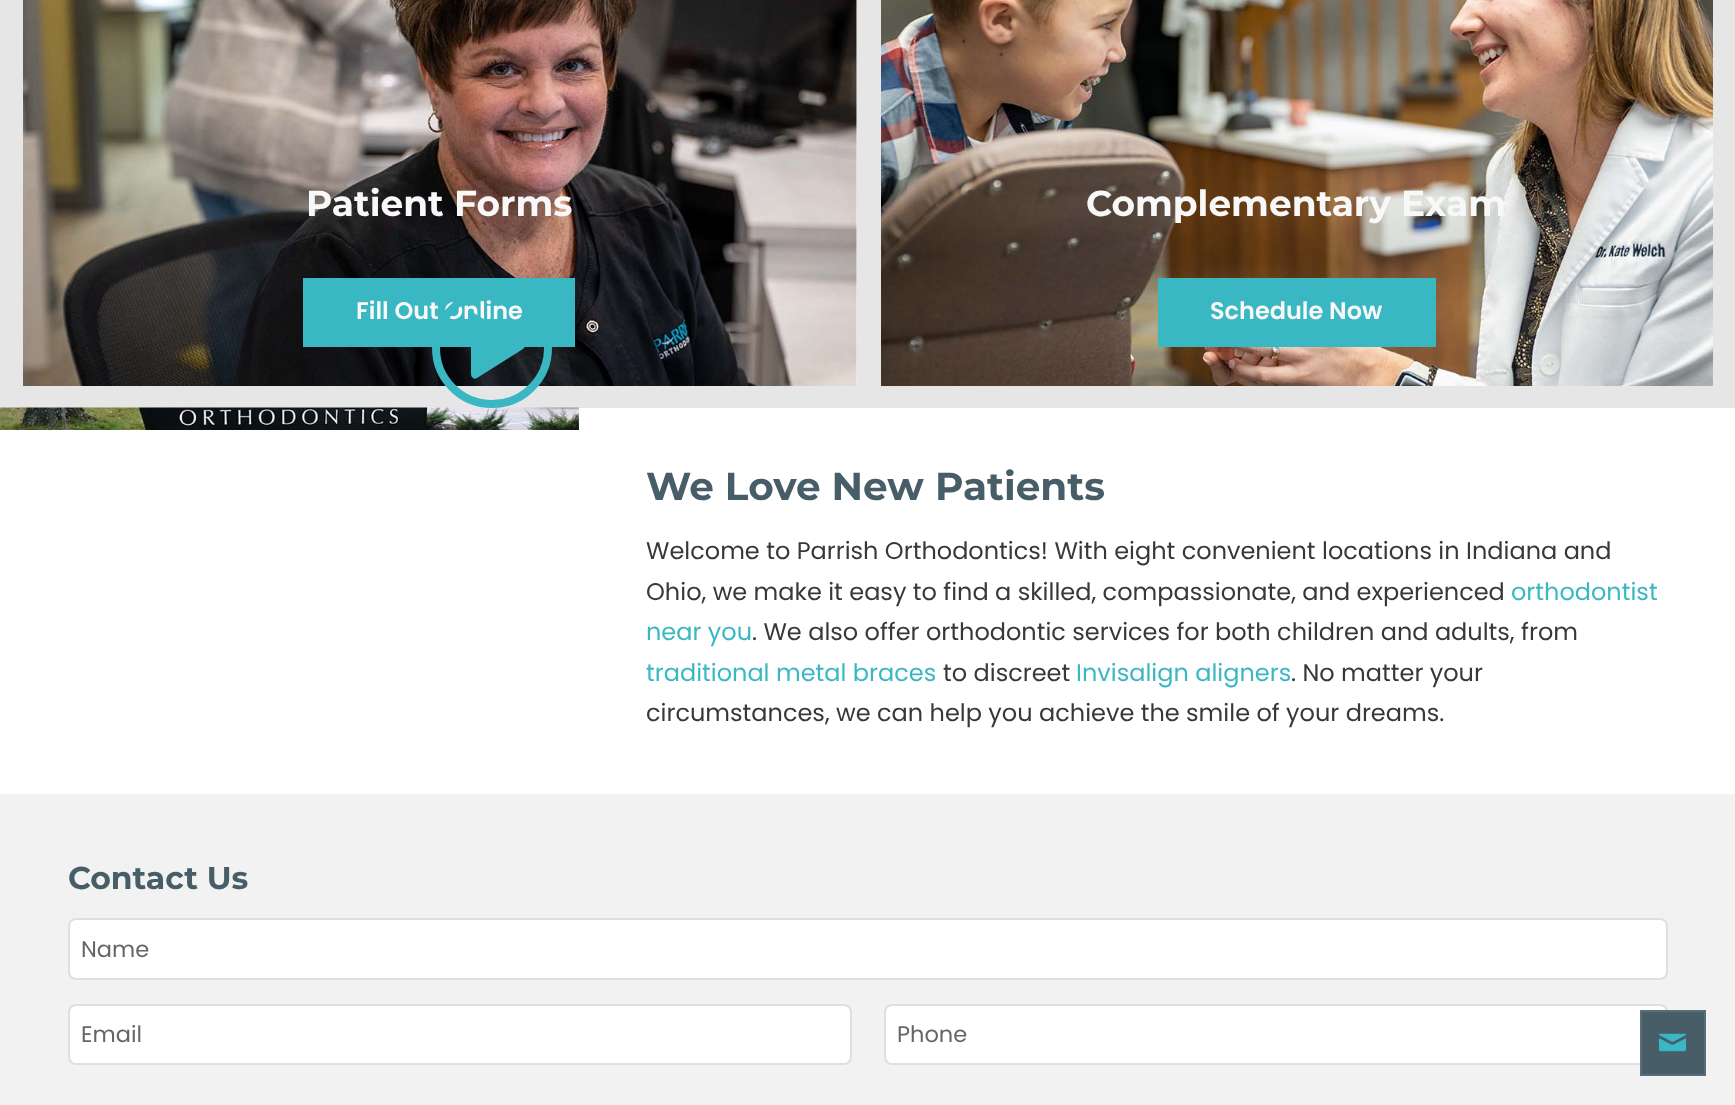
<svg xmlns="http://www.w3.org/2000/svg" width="1735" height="1105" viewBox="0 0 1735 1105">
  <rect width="100%" height="100%" fill="#f8f8f8"/>
  <image x="23" y="0" width="834" height="386" href="img1.png"/>
  <rect x="857" y="0" width="12" height="386" fill="#e6e6e7"/>
  <rect x="23" y="386" width="846" height="22" fill="#e6e6e7"/>
  <rect x="0" y="0" width="23" height="408" fill="#e6e6e7"/>
  <text x="306" y="216" font-family="Montserrat" font-size="36" font-weight="bold" fill="#f8f8f8">Patient Forms</text>
  <rect x="303" y="278" width="272" height="69" fill="#39b7c2"/>
  <text x="356" y="319" font-family="Poppins" font-size="24" font-weight="600" fill="#f8f8f8">Fill Out Online</text>
  <image x="881" y="0" width="832" height="386" href="img2.png"/>
  <rect x="1713" y="0" width="22" height="386" fill="#e6e6e7"/>
  <rect x="881" y="386" width="854" height="22" fill="#e6e6e7"/>
  <rect x="869" y="0" width="12" height="408" fill="#e6e6e7"/>
  <text x="1086" y="216" font-family="Montserrat" font-size="36" font-weight="bold" fill="#f8f8f8">Complementary Exam</text>
  <rect x="1158" y="278" width="278" height="69" fill="#39b7c2"/>
  <text x="1210" y="319" font-family="Poppins" font-size="24" font-weight="600" fill="#f8f8f8">Schedule Now</text>
  <rect x="0" y="408" width="1735" height="386" fill="#ffffff"/>
  <image x="0" y="407" width="579" height="23" href="img3.png"/>
  <path d="M523 343C524 344 525 345 525 346C525 347 524 348 523 349L477 378C476 379 474 379 473 378C472 377 471 376 471 374V318C471 316 472 315 473 314C474 313 476 314 477 315Z" fill="#39b7c2"/>
  <circle cx="492" cy="348" r="56" fill="none" stroke="#39b7c2" stroke-width="8"/>
  <text x="646" y="500" font-family="Montserrat" font-size="39" font-weight="bold" fill="#475e68">We Love New Patients</text>
  <text x="646" y="559" font-family="Poppins" font-size="24" fill="#383838">Welcome to Parrish Orthodontics! With eight convenient locations in Indiana and</text>
  <text x="646" y="600" font-family="Poppins" font-size="24" fill="#383838">Ohio, we make it easy to find a skilled, compassionate, and experienced</text>
  <text x="1511" y="600" font-family="Poppins" font-size="24" fill="#39b7c2">orthodontist</text>
  <text x="646" y="640" font-family="Poppins" font-size="24" fill="#39b7c2">near you</text>
  <text x="752" y="640" font-family="Poppins" font-size="24" fill="#383838">. We also offer orthodontic services for both children and adults, from</text>
  <text x="646" y="681" font-family="Poppins" font-size="24" fill="#39b7c2">traditional metal braces</text>
  <text x="943" y="681" font-family="Poppins" font-size="24" fill="#383838">to discreet</text>
  <text x="1076" y="681" font-family="Poppins" font-size="24" fill="#39b7c2">Invisalign aligners</text>
  <text x="1291" y="681" font-family="Poppins" font-size="24" fill="#383838">. No matter your</text>
  <text x="646" y="721" font-family="Poppins" font-size="24" fill="#383838">circumstances, we can help you achieve the smile of your dreams.</text>
  <rect x="0" y="794" width="1735" height="311" fill="#f2f2f2"/>
  <text x="68" y="889" font-family="Montserrat" font-size="31.5" font-weight="bold" fill="#475e68">Contact Us</text>
  <rect x="69" y="919" width="1598" height="60" rx="7" fill="#ffffff" stroke="#dfdfdf" stroke-width="2"/>
  <text x="81" y="957" font-family="Poppins" font-size="22.5" fill="#666666">Name</text>
  <rect x="69" y="1005" width="782" height="59" rx="7" fill="#ffffff" stroke="#dfdfdf" stroke-width="2"/>
  <text x="81" y="1042" font-family="Poppins" font-size="22.5" fill="#666666">Email</text>
  <rect x="885" y="1005" width="782" height="59" rx="7" fill="#ffffff" stroke="#dfdfdf" stroke-width="2"/>
  <text x="897" y="1042" font-family="Poppins" font-size="22.5" fill="#666666">Phone</text>
  <rect x="1641" y="1011" width="64" height="64" fill="#475e68" stroke="#596d76" stroke-width="2"/>
  <image x="1659" y="1033" width="27" height="19" href="img4.png"/>
</svg>
